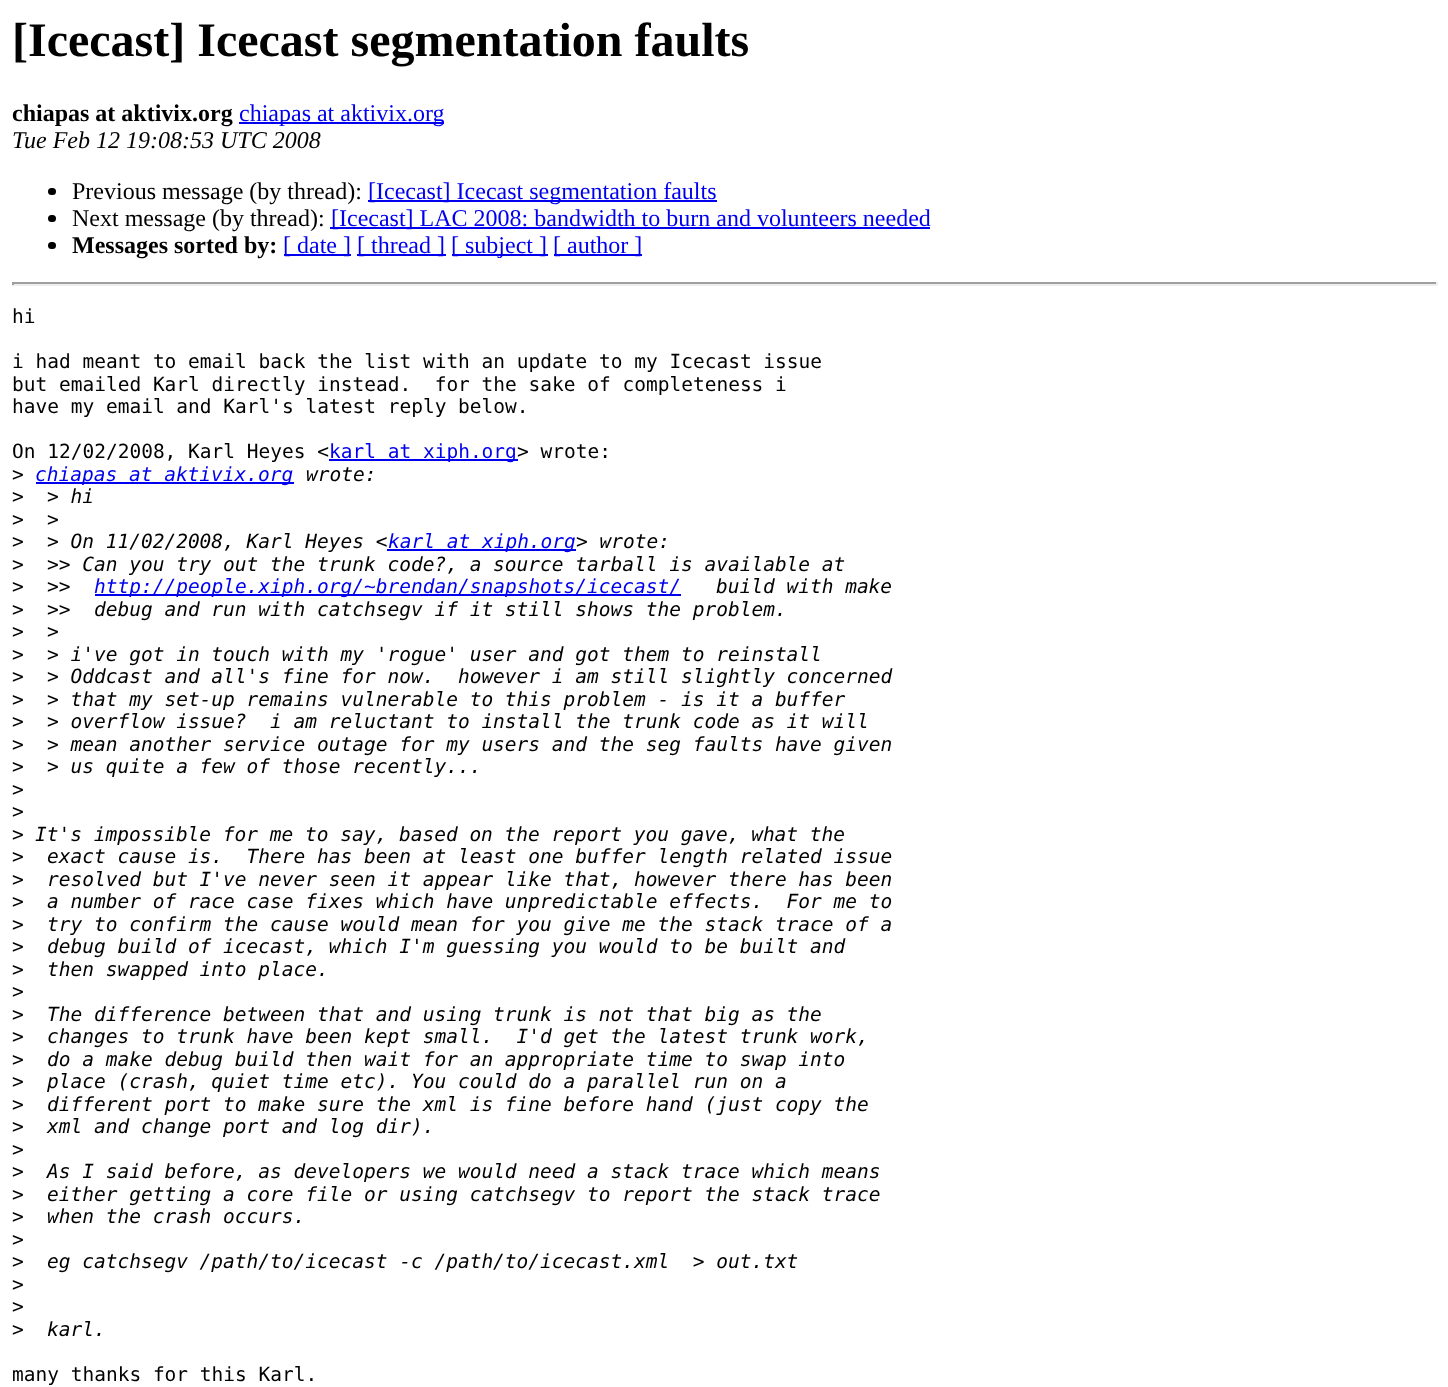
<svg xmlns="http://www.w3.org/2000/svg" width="1448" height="1387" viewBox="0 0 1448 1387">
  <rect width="100%" height="100%" fill="#ffffff"/>
  <text x="12" y="56" font-family="Liberation Serif" font-size="48" font-weight="bold" fill="#000000">[Icecast] Icecast segmentation faults</text>
  <text x="12" y="121" font-family="Liberation Serif" font-size="24" font-weight="bold" fill="#000000">chiapas at aktivix.org</text>
  <rect x="239" y="122" width="205" height="2" fill="#0000ee"/>
  <text x="239" y="121" font-family="Liberation Serif" font-size="24" fill="#0000ee">chiapas at aktivix.org</text>
  <text x="12" y="148" font-family="Liberation Serif" font-size="24" font-style="italic" fill="#000000">Tue Feb 12 19:08:53 UTC 2008</text>
  <rect x="48" y="188" width="8" height="7" rx="3.5" fill="#000000"/>
  <text x="72" y="199" font-family="Liberation Serif" font-size="24" fill="#000000">Previous message (by thread):</text>
  <rect x="368" y="200" width="349" height="2" fill="#0000ee"/>
  <text x="368" y="199" font-family="Liberation Serif" font-size="24" fill="#0000ee">[Icecast] Icecast segmentation faults</text>
  <rect x="48" y="215" width="8" height="7" rx="3.5" fill="#000000"/>
  <text x="72" y="226" font-family="Liberation Serif" font-size="24" fill="#000000">Next message (by thread):</text>
  <rect x="330" y="227" width="600" height="2" fill="#0000ee"/>
  <text x="331" y="226" font-family="Liberation Serif" font-size="24" fill="#0000ee">[Icecast] LAC 2008: bandwidth to burn and volunteers needed</text>
  <rect x="48" y="242" width="8" height="7" rx="3.5" fill="#000000"/>
  <text x="72" y="253" font-family="Liberation Serif" font-size="24" font-weight="bold" fill="#000000">Messages sorted by:</text>
  <rect x="284" y="254" width="67" height="2" fill="#0000ee"/>
  <text x="283" y="253" font-family="Liberation Serif" font-size="24" fill="#0000ee">[ date ]</text>
  <rect x="357" y="254" width="89" height="2" fill="#0000ee"/>
  <text x="357" y="253" font-family="Liberation Serif" font-size="24" fill="#0000ee">[ thread ]</text>
  <rect x="452" y="254" width="96" height="2" fill="#0000ee"/>
  <text x="451" y="253" font-family="Liberation Serif" font-size="24" fill="#0000ee">[ subject ]</text>
  <rect x="554" y="254" width="88" height="2" fill="#0000ee"/>
  <text x="553" y="253" font-family="Liberation Serif" font-size="24" fill="#0000ee">[ author ]</text>
  <rect x="12" y="282" width="1425" height="2" fill="#9f9f9f"/>
  <rect x="1436" y="282" width="2" height="3" fill="#eeeeee"/>
  <rect x="12" y="284" width="1425" height="2" fill="#eeeeee"/>
  <rect x="12" y="282" width="2" height="3" fill="#9f9f9f"/>
  <text x="12" y="323" font-family="DejaVu Sans Mono" font-size="19.5" fill="#000000">hi</text>
  <text x="12" y="368" font-family="DejaVu Sans Mono" font-size="19.5" fill="#000000">i had meant to email back the list with an update to my Icecast issue</text>
  <text x="12" y="391" font-family="DejaVu Sans Mono" font-size="19.5" fill="#000000" xml:space="preserve">but emailed Karl directly instead.  for the sake of completeness i</text>
  <text x="12" y="413" font-family="DejaVu Sans Mono" font-size="19.5" fill="#000000">have my email and Karl's latest reply below.</text>
  <text x="12" y="458" font-family="DejaVu Sans Mono" font-size="19.5" fill="#000000">On 12/02/2008, Karl Heyes &lt;</text>
  <rect x="329" y="459" width="189" height="2" fill="#0000ee"/>
  <text x="329" y="458" font-family="DejaVu Sans Mono" font-size="19.5" fill="#0000ee">karl at xiph.org</text>
  <text x="517" y="458" font-family="DejaVu Sans Mono" font-size="19.5" fill="#000000">&gt; wrote:</text>
  <text x="12" y="481" font-family="DejaVu Sans Mono" font-size="19.5" fill="#000000">&gt;</text>
  <rect x="36" y="482" width="258" height="2" fill="#0000ee"/>
  <text x="35" y="481" font-family="DejaVu Sans Mono" font-size="19.5" font-style="italic" fill="#0000ee">chiapas at aktivix.org</text>
  <text x="306" y="481" font-family="DejaVu Sans Mono" font-size="19.5" font-style="italic" fill="#000000">wrote:</text>
  <text x="12" y="503" font-family="DejaVu Sans Mono" font-size="19.5" fill="#000000">&gt;</text>
  <text x="47" y="503" font-family="DejaVu Sans Mono" font-size="19.5" font-style="italic" fill="#000000">&gt; hi</text>
  <text x="12" y="526" font-family="DejaVu Sans Mono" font-size="19.5" fill="#000000">&gt;</text>
  <text x="47" y="526" font-family="DejaVu Sans Mono" font-size="19.5" font-style="italic" fill="#000000">&gt;</text>
  <text x="12" y="548" font-family="DejaVu Sans Mono" font-size="19.5" fill="#000000">&gt;</text>
  <text x="47" y="548" font-family="DejaVu Sans Mono" font-size="19.5" font-style="italic" fill="#000000">&gt; On 11/02/2008, Karl Heyes &lt;</text>
  <rect x="387" y="549" width="189" height="2" fill="#0000ee"/>
  <text x="388" y="548" font-family="DejaVu Sans Mono" font-size="19.5" font-style="italic" fill="#0000ee">karl at xiph.org</text>
  <text x="576" y="548" font-family="DejaVu Sans Mono" font-size="19.5" font-style="italic" fill="#000000">&gt; wrote:</text>
  <text x="12" y="571" font-family="DejaVu Sans Mono" font-size="19.5" fill="#000000">&gt;</text>
  <text x="47" y="571" font-family="DejaVu Sans Mono" font-size="19.5" font-style="italic" fill="#000000">&gt;&gt; Can you try out the trunk code?, a source tarball is available at</text>
  <text x="12" y="593" font-family="DejaVu Sans Mono" font-size="19.5" fill="#000000">&gt;</text>
  <text x="47" y="593" font-family="DejaVu Sans Mono" font-size="19.5" font-style="italic" fill="#000000">&gt;&gt;</text>
  <rect x="95" y="594" width="586" height="2" fill="#0000ee"/>
  <text x="94" y="593" font-family="DejaVu Sans Mono" font-size="19.5" font-style="italic" fill="#0000ee">http://people.xiph.org/~brendan/snapshots/icecast/</text>
  <text x="716" y="593" font-family="DejaVu Sans Mono" font-size="19.5" font-style="italic" fill="#000000">build with make</text>
  <text x="12" y="616" font-family="DejaVu Sans Mono" font-size="19.5" fill="#000000">&gt;</text>
  <text x="47" y="616" font-family="DejaVu Sans Mono" font-size="19.5" font-style="italic" fill="#000000" xml:space="preserve">&gt;&gt;  debug and run with catchsegv if it still shows the problem.</text>
  <text x="12" y="638" font-family="DejaVu Sans Mono" font-size="19.5" fill="#000000">&gt;</text>
  <text x="47" y="638" font-family="DejaVu Sans Mono" font-size="19.5" font-style="italic" fill="#000000">&gt;</text>
  <text x="12" y="661" font-family="DejaVu Sans Mono" font-size="19.5" fill="#000000">&gt;</text>
  <text x="47" y="661" font-family="DejaVu Sans Mono" font-size="19.5" font-style="italic" fill="#000000">&gt; i've got in touch with my 'rogue' user and got them to reinstall</text>
  <text x="12" y="683" font-family="DejaVu Sans Mono" font-size="19.5" fill="#000000">&gt;</text>
  <text x="47" y="683" font-family="DejaVu Sans Mono" font-size="19.5" font-style="italic" fill="#000000" xml:space="preserve">&gt; Oddcast and all's fine for now.  however i am still slightly concerned</text>
  <text x="12" y="706" font-family="DejaVu Sans Mono" font-size="19.5" fill="#000000">&gt;</text>
  <text x="47" y="706" font-family="DejaVu Sans Mono" font-size="19.5" font-style="italic" fill="#000000">&gt; that my set-up remains vulnerable to this problem - is it a buffer</text>
  <text x="12" y="728" font-family="DejaVu Sans Mono" font-size="19.5" fill="#000000">&gt;</text>
  <text x="47" y="728" font-family="DejaVu Sans Mono" font-size="19.5" font-style="italic" fill="#000000" xml:space="preserve">&gt; overflow issue?  i am reluctant to install the trunk code as it will</text>
  <text x="12" y="751" font-family="DejaVu Sans Mono" font-size="19.5" fill="#000000">&gt;</text>
  <text x="47" y="751" font-family="DejaVu Sans Mono" font-size="19.5" font-style="italic" fill="#000000">&gt; mean another service outage for my users and the seg faults have given</text>
  <text x="12" y="773" font-family="DejaVu Sans Mono" font-size="19.5" fill="#000000">&gt;</text>
  <text x="47" y="773" font-family="DejaVu Sans Mono" font-size="19.5" font-style="italic" fill="#000000">&gt; us quite a few of those recently...</text>
  <text x="12" y="796" font-family="DejaVu Sans Mono" font-size="19.5" fill="#000000">&gt;</text>
  <text x="12" y="818" font-family="DejaVu Sans Mono" font-size="19.5" fill="#000000">&gt;</text>
  <text x="12" y="841" font-family="DejaVu Sans Mono" font-size="19.5" fill="#000000">&gt;</text>
  <text x="35" y="841" font-family="DejaVu Sans Mono" font-size="19.5" font-style="italic" fill="#000000">It's impossible for me to say, based on the report you gave, what the</text>
  <text x="12" y="863" font-family="DejaVu Sans Mono" font-size="19.5" fill="#000000">&gt;</text>
  <text x="47" y="863" font-family="DejaVu Sans Mono" font-size="19.5" font-style="italic" fill="#000000" xml:space="preserve">exact cause is.  There has been at least one buffer length related issue</text>
  <text x="12" y="886" font-family="DejaVu Sans Mono" font-size="19.5" fill="#000000">&gt;</text>
  <text x="47" y="886" font-family="DejaVu Sans Mono" font-size="19.5" font-style="italic" fill="#000000">resolved but I've never seen it appear like that, however there has been</text>
  <text x="12" y="908" font-family="DejaVu Sans Mono" font-size="19.5" fill="#000000">&gt;</text>
  <text x="47" y="908" font-family="DejaVu Sans Mono" font-size="19.5" font-style="italic" fill="#000000" xml:space="preserve">a number of race case fixes which have unpredictable effects.  For me to</text>
  <text x="12" y="931" font-family="DejaVu Sans Mono" font-size="19.5" fill="#000000">&gt;</text>
  <text x="47" y="931" font-family="DejaVu Sans Mono" font-size="19.5" font-style="italic" fill="#000000">try to confirm the cause would mean for you give me the stack trace of a</text>
  <text x="12" y="953" font-family="DejaVu Sans Mono" font-size="19.5" fill="#000000">&gt;</text>
  <text x="47" y="953" font-family="DejaVu Sans Mono" font-size="19.5" font-style="italic" fill="#000000">debug build of icecast, which I'm guessing you would to be built and</text>
  <text x="12" y="976" font-family="DejaVu Sans Mono" font-size="19.5" fill="#000000">&gt;</text>
  <text x="47" y="976" font-family="DejaVu Sans Mono" font-size="19.5" font-style="italic" fill="#000000">then swapped into place.</text>
  <text x="12" y="998" font-family="DejaVu Sans Mono" font-size="19.5" fill="#000000">&gt;</text>
  <text x="12" y="1021" font-family="DejaVu Sans Mono" font-size="19.5" fill="#000000">&gt;</text>
  <text x="47" y="1021" font-family="DejaVu Sans Mono" font-size="19.5" font-style="italic" fill="#000000">The difference between that and using trunk is not that big as the</text>
  <text x="12" y="1043" font-family="DejaVu Sans Mono" font-size="19.5" fill="#000000">&gt;</text>
  <text x="47" y="1043" font-family="DejaVu Sans Mono" font-size="19.5" font-style="italic" fill="#000000" xml:space="preserve">changes to trunk have been kept small.  I'd get the latest trunk work,</text>
  <text x="12" y="1066" font-family="DejaVu Sans Mono" font-size="19.5" fill="#000000">&gt;</text>
  <text x="47" y="1066" font-family="DejaVu Sans Mono" font-size="19.5" font-style="italic" fill="#000000">do a make debug build then wait for an appropriate time to swap into</text>
  <text x="12" y="1088" font-family="DejaVu Sans Mono" font-size="19.5" fill="#000000">&gt;</text>
  <text x="47" y="1088" font-family="DejaVu Sans Mono" font-size="19.5" font-style="italic" fill="#000000">place (crash, quiet time etc). You could do a parallel run on a</text>
  <text x="12" y="1111" font-family="DejaVu Sans Mono" font-size="19.5" fill="#000000">&gt;</text>
  <text x="47" y="1111" font-family="DejaVu Sans Mono" font-size="19.5" font-style="italic" fill="#000000">different port to make sure the xml is fine before hand (just copy the</text>
  <text x="12" y="1133" font-family="DejaVu Sans Mono" font-size="19.5" fill="#000000">&gt;</text>
  <text x="47" y="1133" font-family="DejaVu Sans Mono" font-size="19.5" font-style="italic" fill="#000000">xml and change port and log dir).</text>
  <text x="12" y="1156" font-family="DejaVu Sans Mono" font-size="19.5" fill="#000000">&gt;</text>
  <text x="12" y="1178" font-family="DejaVu Sans Mono" font-size="19.5" fill="#000000">&gt;</text>
  <text x="47" y="1178" font-family="DejaVu Sans Mono" font-size="19.5" font-style="italic" fill="#000000">As I said before, as developers we would need a stack trace which means</text>
  <text x="12" y="1201" font-family="DejaVu Sans Mono" font-size="19.5" fill="#000000">&gt;</text>
  <text x="47" y="1201" font-family="DejaVu Sans Mono" font-size="19.5" font-style="italic" fill="#000000">either getting a core file or using catchsegv to report the stack trace</text>
  <text x="12" y="1223" font-family="DejaVu Sans Mono" font-size="19.5" fill="#000000">&gt;</text>
  <text x="47" y="1223" font-family="DejaVu Sans Mono" font-size="19.5" font-style="italic" fill="#000000">when the crash occurs.</text>
  <text x="12" y="1246" font-family="DejaVu Sans Mono" font-size="19.5" fill="#000000">&gt;</text>
  <text x="12" y="1268" font-family="DejaVu Sans Mono" font-size="19.5" fill="#000000">&gt;</text>
  <text x="47" y="1268" font-family="DejaVu Sans Mono" font-size="19.5" font-style="italic" fill="#000000" xml:space="preserve">eg catchsegv /path/to/icecast -c /path/to/icecast.xml  &gt; out.txt</text>
  <text x="12" y="1291" font-family="DejaVu Sans Mono" font-size="19.5" fill="#000000">&gt;</text>
  <text x="12" y="1313" font-family="DejaVu Sans Mono" font-size="19.5" fill="#000000">&gt;</text>
  <text x="12" y="1336" font-family="DejaVu Sans Mono" font-size="19.5" fill="#000000">&gt;</text>
  <text x="47" y="1336" font-family="DejaVu Sans Mono" font-size="19.5" font-style="italic" fill="#000000">karl.</text>
  <text x="12" y="1381" font-family="DejaVu Sans Mono" font-size="19.5" fill="#000000">many thanks for this Karl.</text>
</svg>
